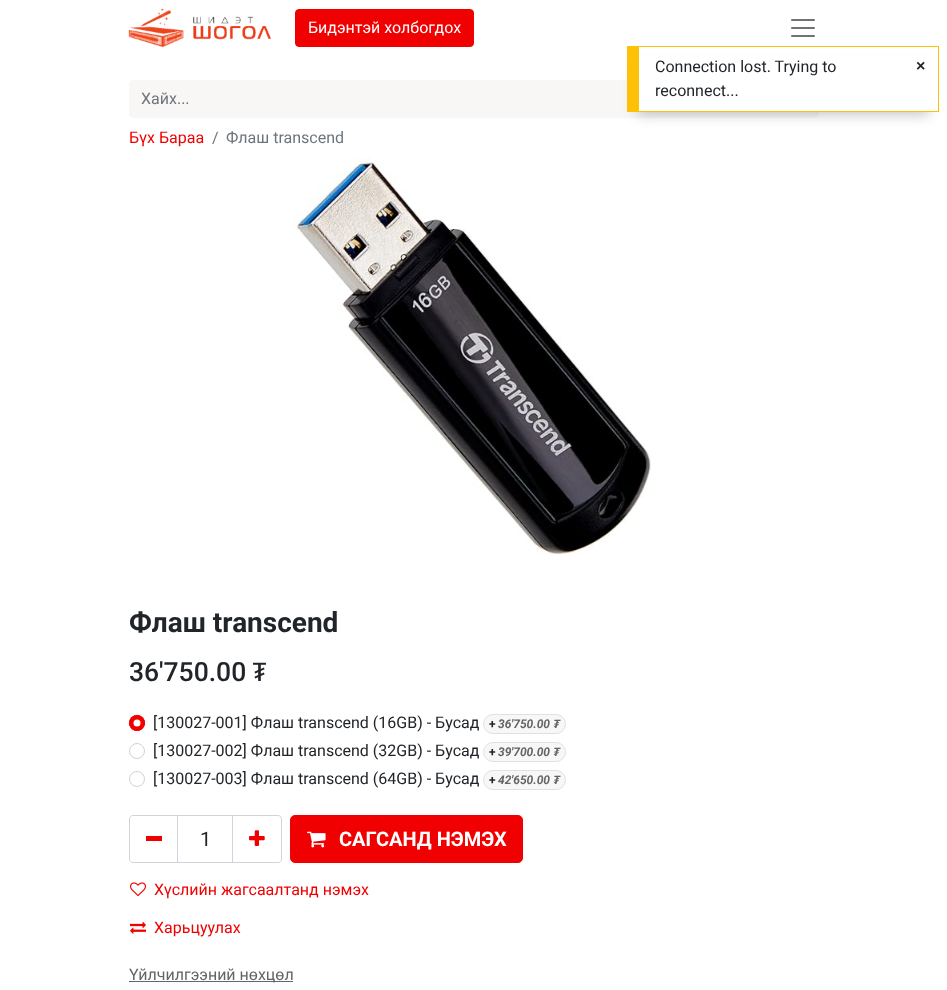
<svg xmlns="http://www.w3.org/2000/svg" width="947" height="990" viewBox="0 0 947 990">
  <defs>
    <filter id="blur1" x="-50%" y="-200%" width="200%" height="500%"><feGaussianBlur stdDeviation="7"/></filter>
  </defs>
  <rect width="100%" height="100%" fill="#ffffff"/>
  <image x="128" y="8" width="143" height="40" href="img1.png"/>
  <rect x="295.5" y="9.5" width="178" height="37" rx="3.5" fill="#f00000" stroke="#f00000"/>
  <text x="308" y="33" font-family="Roboto" font-size="16" fill="#ffffff">Бидэнтэй холбогдох</text>
  <image x="791" y="19" width="24" height="18" href="img2.png"/>
  <path d="M133 80H777V118H133C131 118 129 116 129 114V84C129 82 131 80 133 80Z" fill="#f9f6f6"/>
  <text x="141" y="104" font-family="Roboto" font-size="16" fill="#6c757d">Хайх...</text>
  <path d="M776 80H815C817 80 819 82 819 84V114C819 116 817 118 815 118H776Z" fill="#f9f6f6"/>
  <text x="129" y="143" font-family="Roboto" font-size="16" fill="#f00000">Бүх Бараа</text>
  <text x="212" y="143" font-family="Roboto" font-size="16" fill="#6c757d">/</text>
  <text x="226" y="143" font-family="Roboto" font-size="16" fill="#6c757d">Флаш transcend</text>
  <image x="293" y="158" width="358" height="397" href="img3.png"/>
  <text x="129" y="632" font-family="Roboto" font-size="28" font-weight="bold" fill="#212529">Флаш transcend</text>
  <text x="129" y="681" font-family="Roboto" font-size="26.5" font-weight="500" fill="#212529">36'750.00</text>
  <text x="252" y="681" font-family="Ubuntu" font-size="26.5" font-weight="500" fill="#212529">₮</text>
  <circle cx="137" cy="723" r="8" fill="#f00000"/>
  <circle cx="137" cy="723" r="3.5" fill="#ffffff"/>
  <circle cx="137" cy="723" r="7.5" fill="none" stroke="#f00000"/>
  <text x="153" y="728" font-family="Roboto" font-size="16" fill="#212529">[130027-001] Флаш transcend (16GB) - Бусад</text>
  <rect x="483.5" y="714.5" width="82" height="19" rx="9.5" fill="#f9f6f6" stroke="#dee2e6"/>
  <text x="489" y="728" font-family="Roboto" font-size="12" font-weight="bold" fill="#212529">+</text>
  <text x="498" y="728" font-family="Roboto" font-size="12" font-weight="bold" font-style="italic" fill="#626467">36'750.00</text>
  <text x="553" y="728" font-family="Ubuntu" font-size="12" font-weight="bold" font-style="italic" fill="#626467">₮</text>
  <circle cx="137" cy="751" r="7.5" fill="none" stroke="#ced4da"/>
  <text x="153" y="756" font-family="Roboto" font-size="16" fill="#212529">[130027-002] Флаш transcend (32GB) - Бусад</text>
  <rect x="483.5" y="742.5" width="82" height="19" rx="9.5" fill="#f9f6f6" stroke="#dee2e6"/>
  <text x="489" y="756" font-family="Roboto" font-size="12" font-weight="bold" fill="#212529">+</text>
  <text x="498" y="756" font-family="Roboto" font-size="12" font-weight="bold" font-style="italic" fill="#626467">39'700.00</text>
  <text x="553" y="756" font-family="Ubuntu" font-size="12" font-weight="bold" font-style="italic" fill="#626467">₮</text>
  <circle cx="137" cy="779" r="7.5" fill="none" stroke="#ced4da"/>
  <text x="153" y="784" font-family="Roboto" font-size="16" fill="#212529">[130027-003] Флаш transcend (64GB) - Бусад</text>
  <rect x="483.5" y="770.5" width="82" height="19" rx="9.5" fill="#f9f6f6" stroke="#dee2e6"/>
  <text x="489" y="784" font-family="Roboto" font-size="12" font-weight="bold" fill="#212529">+</text>
  <text x="498" y="784" font-family="Roboto" font-size="12" font-weight="bold" font-style="italic" fill="#626467">42'650.00</text>
  <text x="553" y="784" font-family="Ubuntu" font-size="12" font-weight="bold" font-style="italic" fill="#626467">₮</text>
  <rect x="177.5" y="815.5" width="55" height="47" fill="none" stroke="#ced4da"/>
  <path d="M133 815.5H177.5V862.5H133C131 862.5 129.5 861 129.5 859V819C129.5 817 131 815.5 133 815.5Z" fill="none" stroke="#ced4da"/>
  <rect x="146" y="836" width="16" height="5" fill="#f00000"/>
  <text x="200" y="846" font-family="Roboto" font-size="20" fill="#212529">1</text>
  <path d="M232.5 815.5H278C280 815.5 281.5 817 281.5 819V859C281.5 861 280 862.5 278 862.5H232.5Z" fill="none" stroke="#ced4da"/>
  <image x="249" y="830" width="16" height="16" href="img4.png"/>
  <rect x="290.5" y="815.5" width="232" height="47" rx="4.5" fill="#f00000" stroke="#f00000"/>
  <image x="307" y="831" width="19" height="17" href="img5.png"/>
  <text x="339" y="846" font-family="Roboto" font-size="20" font-weight="bold" fill="#ffffff">САГСАНД НЭМЭХ</text>
  <image x="130" y="882" width="16" height="15" href="img6.png"/>
  <text x="154" y="895" font-family="Roboto" font-size="16" fill="#f00000">Хүслийн жагсаалтанд нэмэх</text>
  <image x="130" y="921" width="16" height="13" href="img7.png"/>
  <text x="154" y="933" font-family="Roboto" font-size="16" fill="#f00000">Харьцуулах</text>
  <rect x="129" y="981" width="164" height="1" fill="#646669"/>
  <text x="129" y="980" font-family="Roboto" font-size="16" fill="#626467">Үйлчилгээний нөхцөл</text>
  <rect x="637" y="68" width="292" height="46" fill="#000000" fill-opacity="0.25" filter="url(#blur1)"/>
  <rect x="639" y="56" width="299" height="55" fill="#ffffff"/>
  <rect x="639" y="46" width="300" height="1" fill="#ffc107"/>
  <rect x="938" y="46" width="1" height="66" fill="#ffc107"/>
  <rect x="639" y="111" width="300" height="1" fill="#ffc107"/>
  <rect x="627" y="46" width="12" height="66" fill="#ffc107"/>
  <text x="655" y="72" font-family="Roboto" font-size="16" fill="#212529">Connection lost. Trying to</text>
  <text x="655" y="96" font-family="Roboto" font-size="16" fill="#212529">reconnect...</text>
  <text x="916" y="71" font-family="Liberation Sans" font-size="16" font-weight="bold" fill="#212529">×</text>
</svg>
